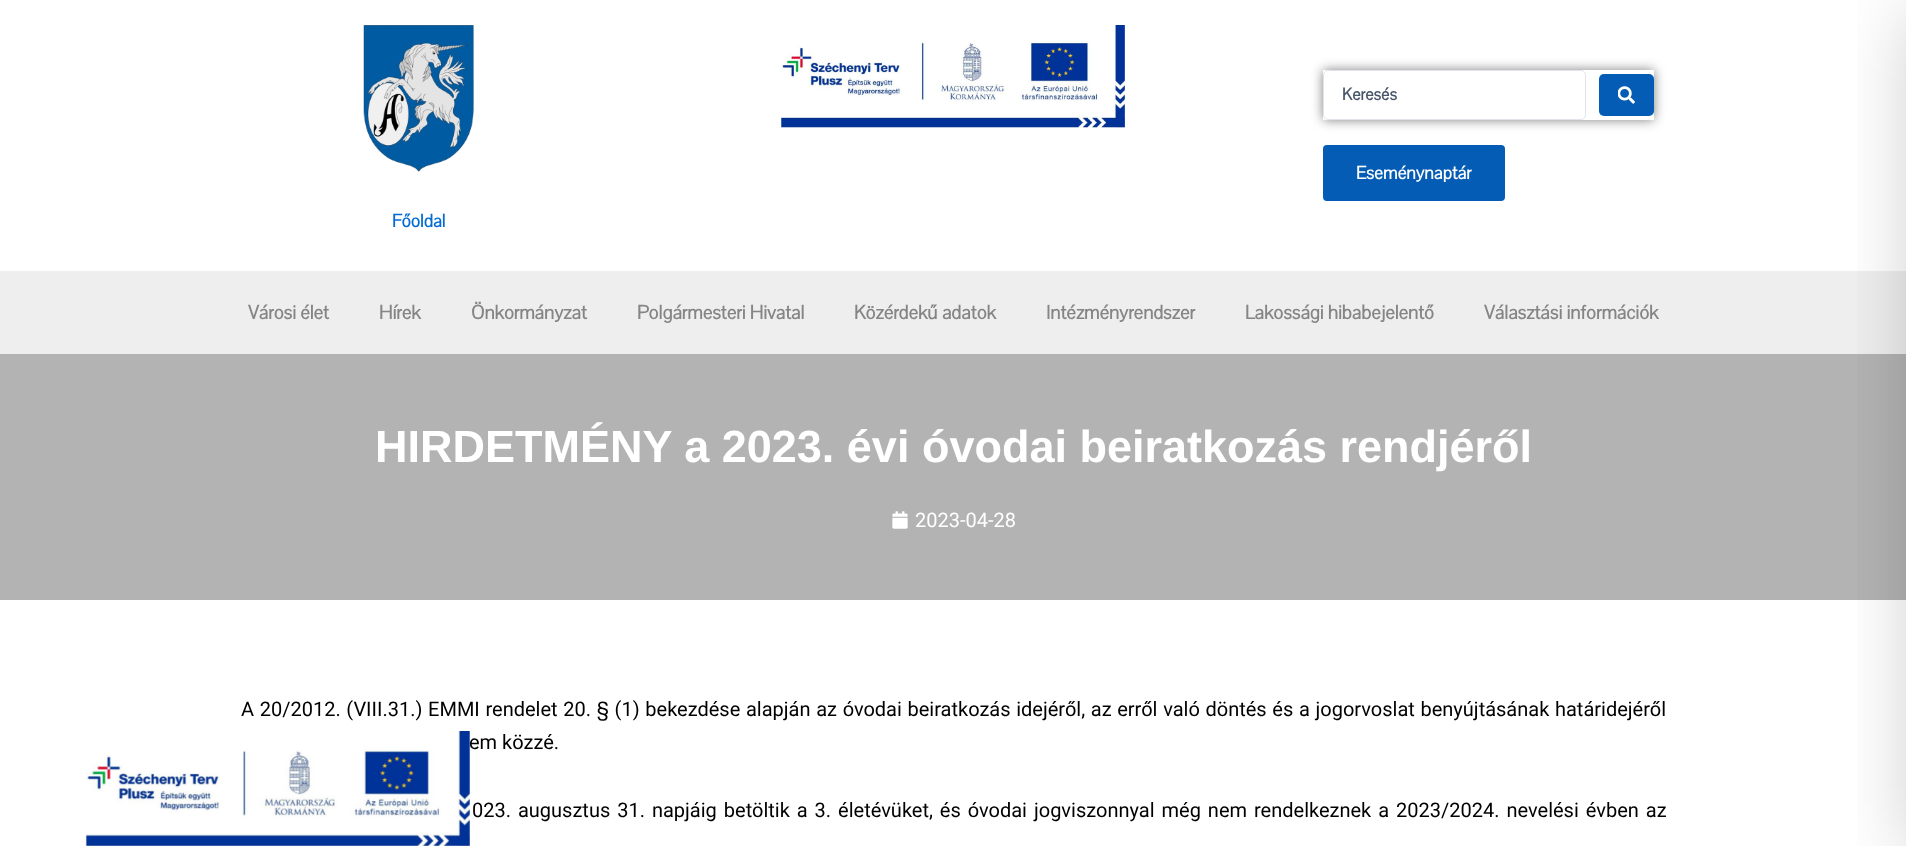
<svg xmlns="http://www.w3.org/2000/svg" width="1906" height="846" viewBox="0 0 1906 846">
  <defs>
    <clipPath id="clip1"><path d="M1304 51H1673V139H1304ZM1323 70H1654V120H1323Z" clip-rule="evenodd"/></clipPath>
    <filter id="blur1" x="-50%" y="-200%" width="200%" height="500%"><feGaussianBlur stdDeviation="6"/></filter>
    <filter id="blur2" x="-50%" y="-200%" width="200%" height="500%"><feGaussianBlur stdDeviation="37.5"/></filter>
  </defs>
  <rect width="100%" height="100%" fill="#ffffff"/>
  <image x="781" y="25" width="344" height="103" href="img1.png"/>
  <g clip-path="url(#clip1)">
    <rect x="1323" y="70" width="331" height="50" fill="#000000" fill-opacity="0.5" filter="url(#blur1)"/>
  </g>
  <rect x="1323.5" y="70.5" width="262" height="49" rx="4.5" fill="none" stroke="#e1e5eb"/>
  <text x="1342" y="100" font-family="Pavanam" font-size="17.5" font-weight="bold" fill="#475569">Keresés</text>
  <rect x="1599" y="74" width="55" height="42" rx="5" fill="#045cb4"/>
  <image x="1618" y="86" width="17" height="18" href="img2.png"/>
  <rect x="1325" y="147" width="178" height="52" rx="2" fill="#045cb4" stroke="#045cb4" stroke-width="4"/>
  <text x="1356" y="179" font-family="Pavanam" font-size="18.75" font-weight="bold" fill="#ffffff">Eseménynaptár</text>
  <image x="363" y="25" width="111" height="148" href="img3.png"/>
  <text x="392" y="227" font-family="Pavanam" font-size="18.75" font-weight="bold" fill="#046bd2">Főoldal</text>
  <rect x="0" y="271" width="1906" height="83" fill="#eeeeee"/>
  <text x="248" y="319" font-family="Pavanam" font-size="20" font-weight="bold" fill="#858585">Városi élet</text>
  <text x="379" y="319" font-family="Pavanam" font-size="20" font-weight="bold" fill="#858585">Hírek</text>
  <text x="471" y="319" font-family="Pavanam" font-size="20" font-weight="bold" fill="#858585">Önkormányzat</text>
  <text x="637" y="319" font-family="Pavanam" font-size="20" font-weight="bold" fill="#858585">Polgármesteri Hivatal</text>
  <text x="854" y="319" font-family="Pavanam" font-size="20" font-weight="bold" fill="#858585">Közérdekű adatok</text>
  <text x="1046" y="319" font-family="Pavanam" font-size="20" font-weight="bold" fill="#858585">Intézményrendszer</text>
  <text x="1245" y="319" font-family="Pavanam" font-size="20" font-weight="bold" fill="#858585">Lakossági hibabejelentő</text>
  <text x="1484" y="319" font-family="Pavanam" font-size="20" font-weight="bold" fill="#858585">Választási információk</text>
  <rect x="0" y="354" width="1906" height="246" fill="#b3b3b3"/>
  <text x="375" y="462" font-family="Liberation Sans" font-size="45" font-weight="bold" fill="#ffffff">HIRDETMÉNY a 2023. évi óvodai beiratkozás rendjéről</text>
  <image x="892" y="511" width="16" height="18" href="img4.png"/>
  <text x="915" y="527" font-family="Roboto" font-size="20" fill="#ffffff">2023-04-28</text>
  <text x="241" y="716" word-spacing="0.7" font-family="Roboto" font-size="20" fill="#000000">A 20/2012. (VIII.31.) EMMI rendelet 20. § (1) bekezdése alapján az óvodai beiratkozás idejéről, az erről való döntés és a jogorvoslat benyújtásának határidejéről</text>
  <text x="469" y="749" font-family="Roboto" font-size="20" fill="#000000">em közzé.</text>
  <text x="472" y="817" word-spacing="2" font-family="Roboto" font-size="20" fill="#000000">023. augusztus 31. napjáig betöltik a 3. életévüket, és óvodai jogviszonnyal még nem rendelkeznek a 2023/2024. nevelési évben az</text>
  <image x="85" y="731" width="385" height="115" href="img5.png"/>
  <rect x="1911" y="13" width="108" height="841" fill="#000000" fill-opacity="0.2" filter="url(#blur2)"/>
</svg>
